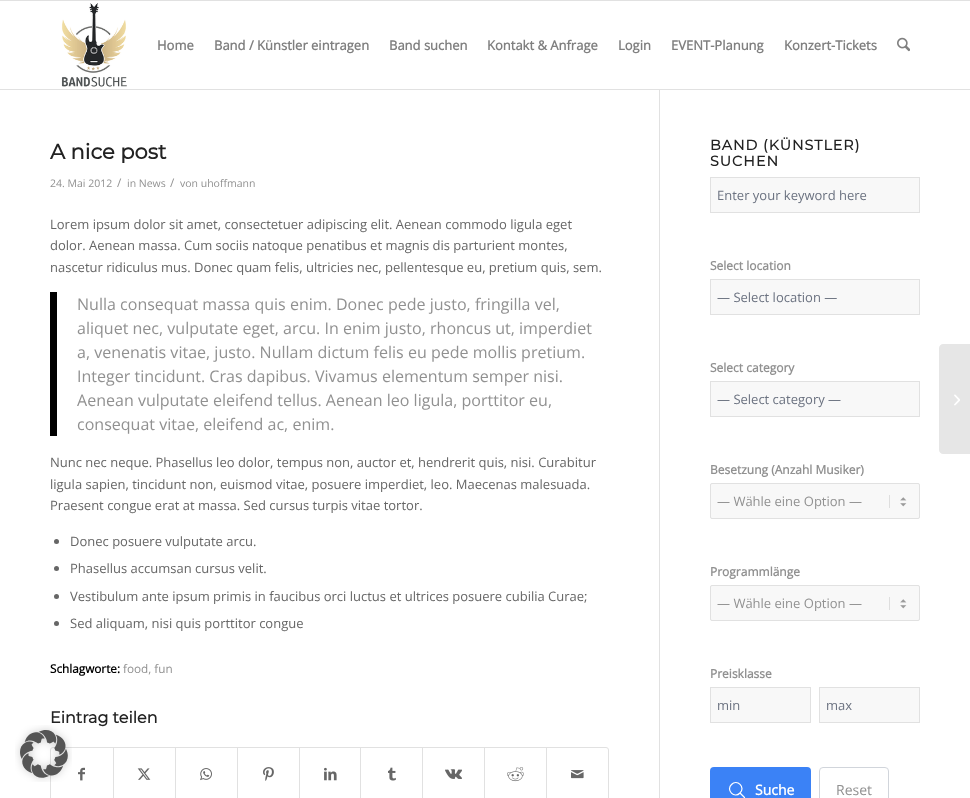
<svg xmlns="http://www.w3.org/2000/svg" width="970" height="798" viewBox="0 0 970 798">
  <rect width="100%" height="100%" fill="#ffffff"/>
  <text x="50" y="723" font-family="Montserrat" font-size="16" font-weight="bold" fill="#222222">Eintrag teilen</text>
  <rect x="50.5" y="747.5" width="558" height="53" rx="2.5" fill="none" stroke="#e1e1e1"/>
  <image x="15" y="725" width="57" height="57" href="img1.png"/>
  <rect x="0" y="0" width="970" height="1" fill="#e1e1e1"/>
  <rect x="659" y="88" width="1" height="710" fill="#e1e1e1"/>
  <rect x="0" y="89" width="970" height="1" fill="#e1e1e1"/>
  <image x="61" y="3" width="66" height="84" href="img2.png"/>
  <text x="157" y="50" font-family="Open Sans" font-size="13" font-weight="bold" fill="#808080">Home</text>
  <text x="214" y="50" font-family="Open Sans" font-size="13" font-weight="bold" fill="#808080">Band / Künstler eintragen</text>
  <text x="389" y="50" font-family="Open Sans" font-size="13" font-weight="bold" fill="#808080">Band suchen</text>
  <text x="487" y="50" font-family="Open Sans" font-size="13" font-weight="bold" fill="#808080">Kontakt &amp; Anfrage</text>
  <text x="618" y="50" font-family="Open Sans" font-size="13" font-weight="bold" fill="#808080">Login</text>
  <text x="671" y="50" font-family="Open Sans" font-size="13" font-weight="bold" fill="#808080">EVENT-Planung</text>
  <text x="784" y="50" font-family="Open Sans" font-size="13" font-weight="bold" fill="#808080">Konzert-Tickets</text>
  <image x="897" y="37" width="13" height="15" href="img3.png"/>
  <rect x="659" y="88" width="1" height="1" fill="#ffffff"/>
  <text x="50" y="159" font-family="Montserrat" font-size="21" font-weight="bold" fill="#222222">A nice post</text>
  <text x="50" y="187" font-family="Open Sans" font-size="10.5" fill="#919191">24. Mai 2012</text>
  <text x="117" y="187" font-family="Open Sans" font-size="11.75" fill="#919191">/</text>
  <text x="127" y="187" font-family="Open Sans" font-size="10.5" fill="#919191">in News</text>
  <text x="170" y="187" font-family="Open Sans" font-size="11.75" fill="#919191">/</text>
  <text x="180" y="187" font-family="Open Sans" font-size="10.5" fill="#919191">von uhoffmann</text>
  <text x="50" y="229" font-family="Open Sans" font-size="13" fill="#666666">Lorem ipsum dolor sit amet, consectetuer adipiscing elit. Aenean commodo ligula eget</text>
  <text x="50" y="250" font-family="Open Sans" font-size="13" fill="#666666">dolor. Aenean massa. Cum sociis natoque penatibus et magnis dis parturient montes,</text>
  <text x="50" y="272" font-family="Open Sans" font-size="13" fill="#666666">nascetur ridiculus mus. Donec quam felis, ultricies nec, pellentesque eu, pretium quis, sem.</text>
  <rect x="50" y="292" width="7" height="144" fill="#000000"/>
  <text x="77" y="310" font-family="Open Sans" font-size="16.05" fill="#919191">Nulla consequat massa quis enim. Donec pede justo, fringilla vel,</text>
  <text x="77" y="334" font-family="Open Sans" font-size="16.05" fill="#919191">aliquet nec, vulputate eget, arcu. In enim justo, rhoncus ut, imperdiet</text>
  <text x="77" y="358" font-family="Open Sans" font-size="16.05" fill="#919191">a, venenatis vitae, justo. Nullam dictum felis eu pede mollis pretium.</text>
  <text x="77" y="382" font-family="Open Sans" font-size="16.05" fill="#919191">Integer tincidunt. Cras dapibus. Vivamus elementum semper nisi.</text>
  <text x="77" y="406" font-family="Open Sans" font-size="16.05" fill="#919191">Aenean vulputate eleifend tellus. Aenean leo ligula, porttitor eu,</text>
  <text x="77" y="430" font-family="Open Sans" font-size="16.05" fill="#919191">consequat vitae, eleifend ac, enim.</text>
  <text x="50" y="467" font-family="Open Sans" font-size="13" fill="#666666">Nunc nec neque. Phasellus leo dolor, tempus non, auctor et, hendrerit quis, nisi. Curabitur</text>
  <text x="50" y="489" font-family="Open Sans" font-size="13" fill="#666666">ligula sapien, tincidunt non, euismod vitae, posuere imperdiet, leo. Maecenas malesuada.</text>
  <text x="50" y="510" font-family="Open Sans" font-size="13" fill="#666666">Praesent congue erat at massa. Sed cursus turpis vitae tortor.</text>
  <circle cx="56.5" cy="541.5" r="2.5" fill="#666666"/>
  <text x="70" y="546" font-family="Open Sans" font-size="13" fill="#666666">Donec posuere vulputate arcu.</text>
  <circle cx="56.5" cy="568.5" r="2.5" fill="#666666"/>
  <text x="70" y="573" font-family="Open Sans" font-size="13" fill="#666666">Phasellus accumsan cursus velit.</text>
  <circle cx="56.5" cy="596.5" r="2.5" fill="#666666"/>
  <text x="70" y="601" font-family="Open Sans" font-size="13" fill="#666666">Vestibulum ante ipsum primis in faucibus orci luctus et ultrices posuere cubilia Curae;</text>
  <circle cx="56.5" cy="623.5" r="2.5" fill="#666666"/>
  <text x="70" y="628" font-family="Open Sans" font-size="13" fill="#666666">Sed aliquam, nisi quis porttitor congue</text>
  <text x="50" y="673" font-family="Open Sans" font-size="11.75" font-weight="bold" fill="#000000">Schlagworte:</text>
  <text x="123" y="673" font-family="Open Sans" font-size="11.75" fill="#919191">food, fun</text>
  <image x="78" y="767" width="7" height="14" href="img4.png"/>
  <rect x="113" y="748" width="1" height="50" fill="#e1e1e1"/>
  <image x="137" y="768" width="14" height="12" href="img5.png"/>
  <rect x="175" y="748" width="1" height="50" fill="#e1e1e1"/>
  <image x="200" y="768" width="12" height="13" href="img6.png"/>
  <rect x="237" y="748" width="1" height="50" fill="#e1e1e1"/>
  <image x="263" y="767" width="11" height="14" href="img7.png"/>
  <rect x="299" y="748" width="1" height="50" fill="#e1e1e1"/>
  <image x="324" y="767" width="13" height="14" href="img8.png"/>
  <rect x="360" y="748" width="1" height="50" fill="#e1e1e1"/>
  <image x="388" y="767" width="8" height="14" href="img9.png"/>
  <rect x="422" y="748" width="1" height="50" fill="#e1e1e1"/>
  <image x="445" y="769" width="17" height="10" href="img10.png"/>
  <rect x="484" y="748" width="1" height="50" fill="#e1e1e1"/>
  <image x="507" y="767" width="17" height="15" href="img11.png"/>
  <rect x="546" y="748" width="1" height="50" fill="#e1e1e1"/>
  <image x="571" y="770" width="13" height="9" href="img12.png"/>
  <text x="710" y="150" font-family="Montserrat" font-size="14.25" font-weight="bold" letter-spacing="1" fill="#222222">BAND (KÜNSTLER)</text>
  <text x="710" y="166" font-family="Montserrat" font-size="14.25" font-weight="bold" letter-spacing="1" fill="#222222">SUCHEN</text>
  <rect x="710.5" y="177.5" width="209" height="35" fill="#f8f8f8" stroke="#e1e1e1"/>
  <text x="717" y="200" font-family="Open Sans" font-size="13" fill="#6b7280">Enter your keyword here</text>
  <text x="710" y="270" font-family="Open Sans" font-size="12" font-weight="bold" fill="#919191">Select location</text>
  <rect x="710.5" y="279.5" width="209" height="35" fill="#f8f8f8" stroke="#e1e1e1"/>
  <text x="717" y="302" font-family="Open Sans" font-size="13" fill="#6b7280">— Select location —</text>
  <text x="710" y="372" font-family="Open Sans" font-size="12" font-weight="bold" fill="#919191">Select category</text>
  <rect x="710.5" y="381.5" width="209" height="35" fill="#f8f8f8" stroke="#e1e1e1"/>
  <text x="717" y="404" font-family="Open Sans" font-size="13" fill="#6b7280">— Select category —</text>
  <text x="710" y="474" font-family="Open Sans" font-size="12" font-weight="bold" fill="#919191">Besetzung (Anzahl Musiker)</text>
  <rect x="710" y="483" width="210" height="36" rx="2" fill="#f8f8f8"/>
  <image x="889" y="495" width="18" height="13" href="img13.png"/>
  <rect x="710.5" y="483.5" width="209" height="35" rx="1.5" fill="none" stroke="#e1e1e1"/>
  <text x="717" y="506" font-family="Open Sans" font-size="13" fill="#919191">— Wähle eine Option —</text>
  <text x="710" y="576" font-family="Open Sans" font-size="12" font-weight="bold" fill="#919191">Programmlänge</text>
  <rect x="710" y="585" width="210" height="36" rx="2" fill="#f8f8f8"/>
  <image x="889" y="597" width="18" height="13" href="img13.png"/>
  <rect x="710.5" y="585.5" width="209" height="35" rx="1.5" fill="none" stroke="#e1e1e1"/>
  <text x="717" y="608" font-family="Open Sans" font-size="13" fill="#919191">— Wähle eine Option —</text>
  <text x="710" y="678" font-family="Open Sans" font-size="12" font-weight="bold" fill="#919191">Preisklasse</text>
  <rect x="710.5" y="687.5" width="100" height="35" fill="#f8f8f8" stroke="#e1e1e1"/>
  <text x="717" y="710" font-family="Open Sans" font-size="13" fill="#6b7280">min</text>
  <rect x="819.5" y="687.5" width="100" height="35" fill="#f8f8f8" stroke="#e1e1e1"/>
  <text x="826" y="710" font-family="Open Sans" font-size="13" fill="#6b7280">max</text>
  <rect x="710" y="767" width="101" height="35" rx="4" fill="#3b82f6"/>
  <path d="M744.5 797.5L740 793M740 793C746 787.5 737 778.5 731.5 784.5C725.5 790 734.5 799 740 793Z" fill="none" stroke="#ffffff" stroke-width="1.2" stroke-linecap="round" stroke-linejoin="round"/>
  <text x="755" y="795" font-family="Open Sans" font-size="14" font-weight="bold" fill="#ffffff">Suche</text>
  <rect x="819.5" y="767.5" width="69" height="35" rx="3.5" fill="none" stroke="#d1d5db"/>
  <text x="836" y="795" font-family="Open Sans" font-size="14" fill="#919191">Reset</text>
  <path d="M943 344H970V454H943C941 454 939 452 939 450V348C939 346 941 344 943 344Z" fill="#e6e6e6"/>
  <image x="954" y="394" width="6" height="12" href="img14.png"/>
</svg>
